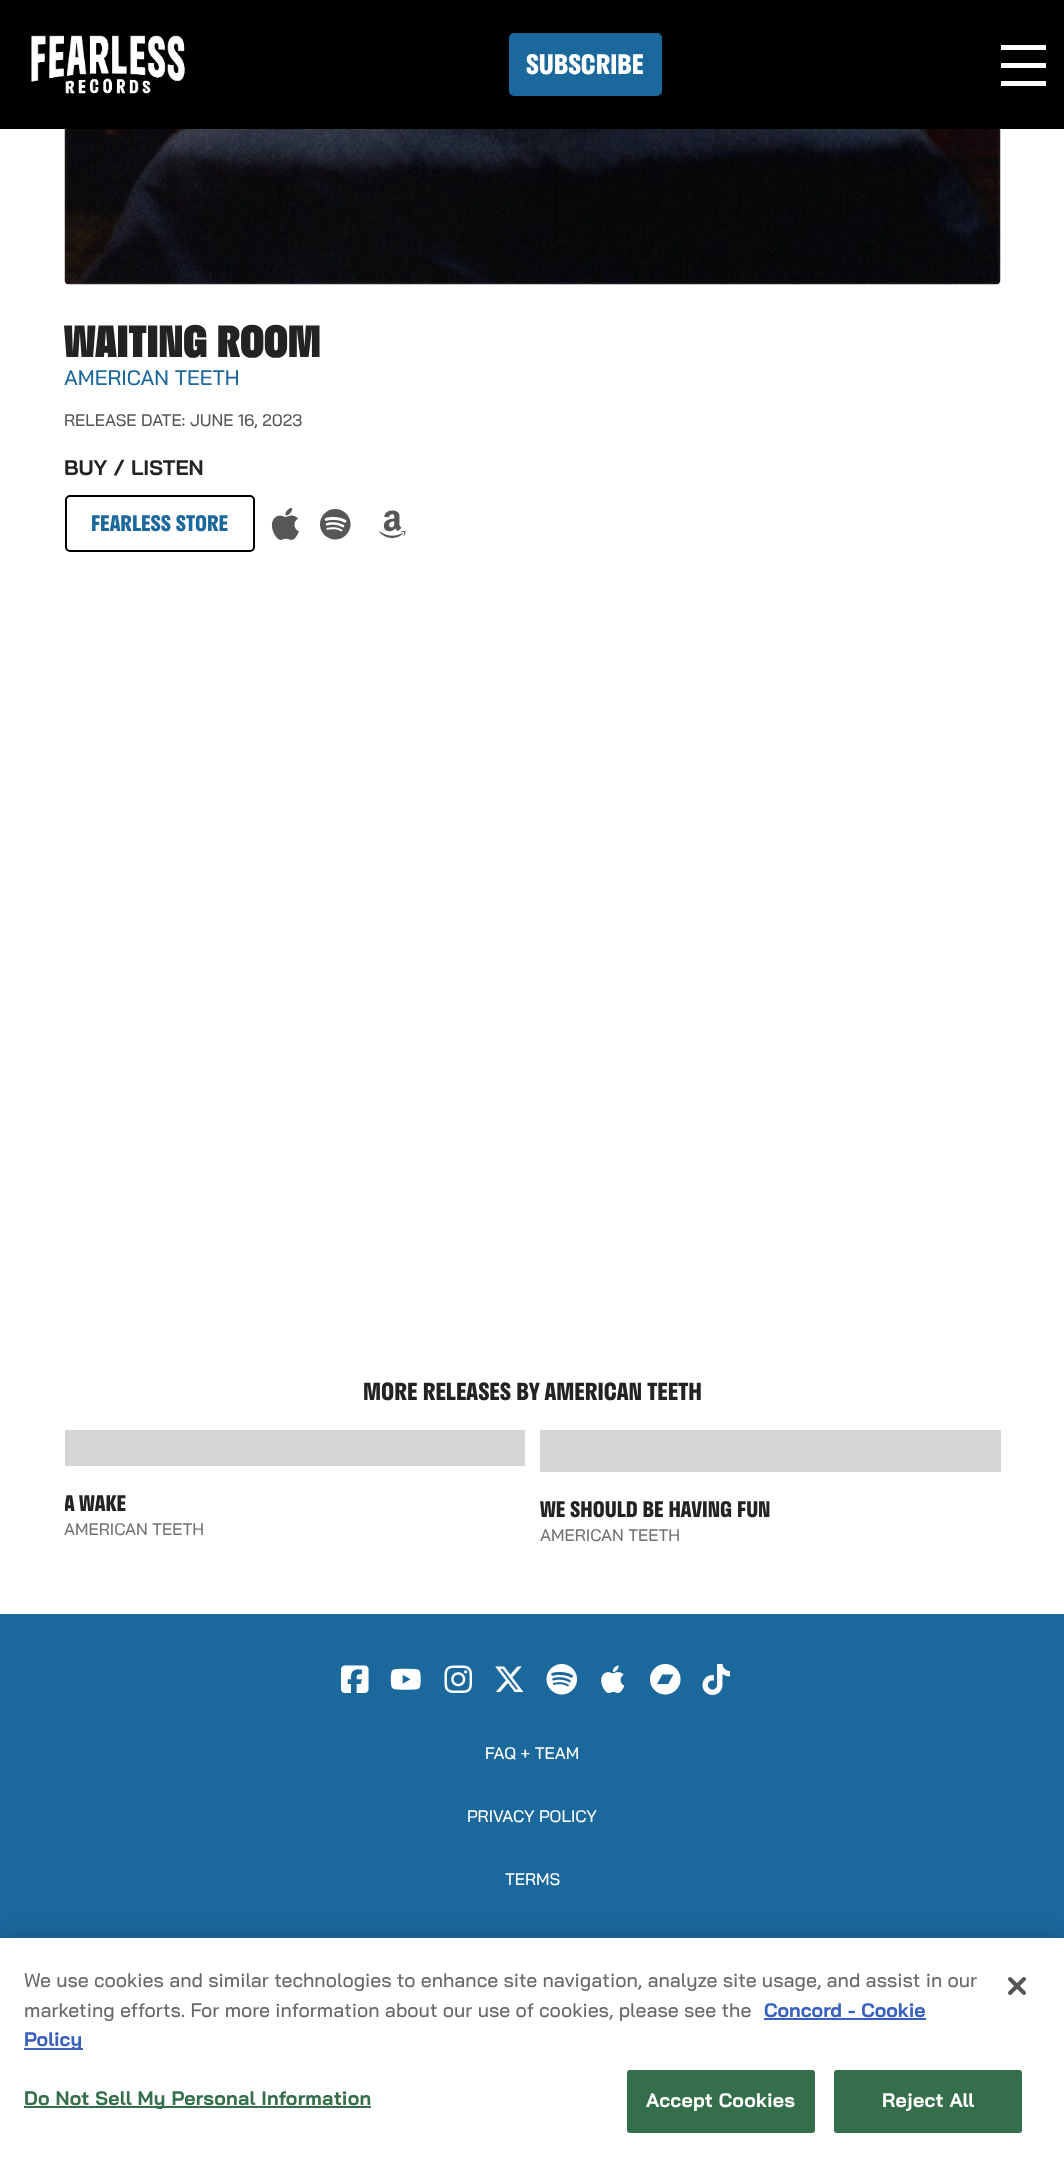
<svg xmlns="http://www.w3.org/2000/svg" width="1064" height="2159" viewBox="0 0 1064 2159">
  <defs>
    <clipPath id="clip1"><rect x="65" y="1430" width="460" height="115"/></clipPath>
    <filter id="blur1" x="-50%" y="-200%" width="200%" height="500%"><feGaussianBlur stdDeviation="13.5"/></filter>
  </defs>
  <rect width="100%" height="100%" fill="#ffffff"/>
  <rect x="0" y="0" width="1064" height="129" fill="#000000"/>
  <image x="31" y="35" width="154" height="59" href="img1.png"/>
  <rect x="510.5" y="34.5" width="150" height="60" rx="3.5" fill="#1b689d" stroke="#1b689d" stroke-width="3"/>
  <text x="526" y="74" font-family="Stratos" font-size="26.25" font-weight="bold" fill="#ffffff">SUBSCRIBE</text>
  <rect x="1001" y="45" width="45" height="5" fill="#ffffff"/>
  <rect x="1001" y="63" width="45" height="5" fill="#ffffff"/>
  <rect x="1001" y="81" width="45" height="5" fill="#ffffff"/>
  <image x="64" y="129" width="937" height="156" href="img2.png"/>
  <text x="64" y="357" font-family="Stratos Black" font-size="42" font-weight="900" fill="#232323">WAITING ROOM</text>
  <text x="64" y="385" font-family="Bai Jamjuree" font-size="21" font-weight="500" fill="#1b689d">AMERICAN TEETH</text>
  <text x="64" y="426" font-family="Bai Jamjuree" font-size="16.75" font-weight="500" fill="#575757">RELEASE DATE: JUNE 16, 2023</text>
  <text x="64" y="475" font-family="Bai Jamjuree" font-size="21" font-weight="bold" fill="#232323">BUY / LISTEN</text>
  <rect x="66" y="496" width="188" height="55" rx="4" fill="none" stroke="#000000" stroke-width="2"/>
  <text x="91" y="531" font-family="Stratos" font-size="21" font-weight="bold" fill="#1b689d">FEARLESS STORE</text>
  <image x="271" y="507" width="28" height="33" href="img3.png"/>
  <image x="320" y="509" width="31" height="31" href="img4.png"/>
  <image x="379" y="510" width="27" height="28" href="img5.png"/>
  <text x="363" y="1400" font-family="Stratos" font-size="23.1" font-weight="bold" fill="#232323">MORE RELEASES BY AMERICAN TEETH</text>
  <rect x="65" y="1430" width="460" height="36" fill="#d5d5d5"/>
  <g clip-path="url(#clip1)">
    <text x="64" y="1511" font-family="Stratos" font-size="21" font-weight="bold" fill="#232323">A WAKE</text>
  </g>
  <text x="64" y="1535" font-family="Bai Jamjuree" font-size="16.75" font-weight="500" fill="#737373">AMERICAN TEETH</text>
  <rect x="540" y="1430" width="461" height="42" fill="#d5d5d5"/>
  <text x="540" y="1517" font-family="Stratos" font-size="21" font-weight="bold" fill="#232323">WE SHOULD BE HAVING FUN</text>
  <text x="540" y="1541" font-family="Bai Jamjuree" font-size="16.75" font-weight="500" fill="#737373">AMERICAN TEETH</text>
  <rect x="0" y="1614" width="1064" height="324" fill="#1b689d"/>
  <image x="340" y="1665" width="29" height="28" href="img6.png"/>
  <image x="390" y="1668" width="31" height="22" href="img7.png"/>
  <image x="444" y="1665" width="29" height="28" href="img8.png"/>
  <image x="495" y="1666" width="29" height="27" href="img9.png"/>
  <image x="546" y="1664" width="31" height="31" href="img10.png"/>
  <image x="601" y="1665" width="24" height="28" href="img11.png"/>
  <image x="650" y="1664" width="31" height="31" href="img12.png"/>
  <image x="702" y="1664" width="29" height="31" href="img13.png"/>
  <text x="485" y="1759" font-family="Bai Jamjuree" font-size="16.75" font-weight="500" fill="#ffffff">FAQ + TEAM</text>
  <text x="467" y="1822" font-family="Bai Jamjuree" font-size="16.75" font-weight="500" fill="#ffffff">PRIVACY POLICY</text>
  <text x="505" y="1885" font-family="Bai Jamjuree" font-size="16.75" font-weight="500" fill="#ffffff">TERMS</text>
  <rect x="0" y="1938" width="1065" height="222" fill="#000000" fill-opacity="0.2" filter="url(#blur1)"/>
  <rect x="0" y="1938" width="1064" height="221" fill="#ffffff"/>
  <text x="24" y="1987" font-family="Bai Jamjuree" font-size="19.5" font-weight="500" fill="#696969">We use cookies and similar technologies to enhance site navigation, analyze site usage, and assist in our</text>
  <text x="24" y="2017" font-family="Bai Jamjuree" font-size="19.5" font-weight="500" fill="#696969">marketing efforts. For more information about our use of cookies, please see the</text>
  <text x="764" y="2017" font-family="Bai Jamjuree" font-size="19.5" font-weight="bold" fill="#3860be">Concord - Cookie</text>
  <rect x="764" y="2018" width="162" height="2" fill="#3860be"/>
  <rect x="24" y="2048" width="59" height="2" fill="#3860be"/>
  <text x="24" y="2046" font-family="Bai Jamjuree" font-size="19.5" font-weight="bold" fill="#3860be">Policy</text>
  <rect x="24" y="2106" width="347" height="2" fill="#346e4a"/>
  <text x="24" y="2105" font-family="Bai Jamjuree" font-size="19.5" font-weight="bold" letter-spacing="0.2" fill="#346e4a">Do Not Sell My Personal Information</text>
  <rect x="628" y="2071" width="186" height="61" rx="2" fill="#346e4a" stroke="#346e4a" stroke-width="2"/>
  <text x="646" y="2107" font-family="Bai Jamjuree" font-size="19.5" font-weight="bold" letter-spacing="0.2" fill="#ffffff">Accept Cookies</text>
  <rect x="835" y="2071" width="186" height="61" rx="2" fill="#346e4a" stroke="#346e4a" stroke-width="2"/>
  <text x="882" y="2107" font-family="Bai Jamjuree" font-size="19.5" font-weight="bold" letter-spacing="0.2" fill="#ffffff">Reject All</text>
  <image x="1008" y="1977" width="18" height="18" href="img14.png"/>
</svg>
